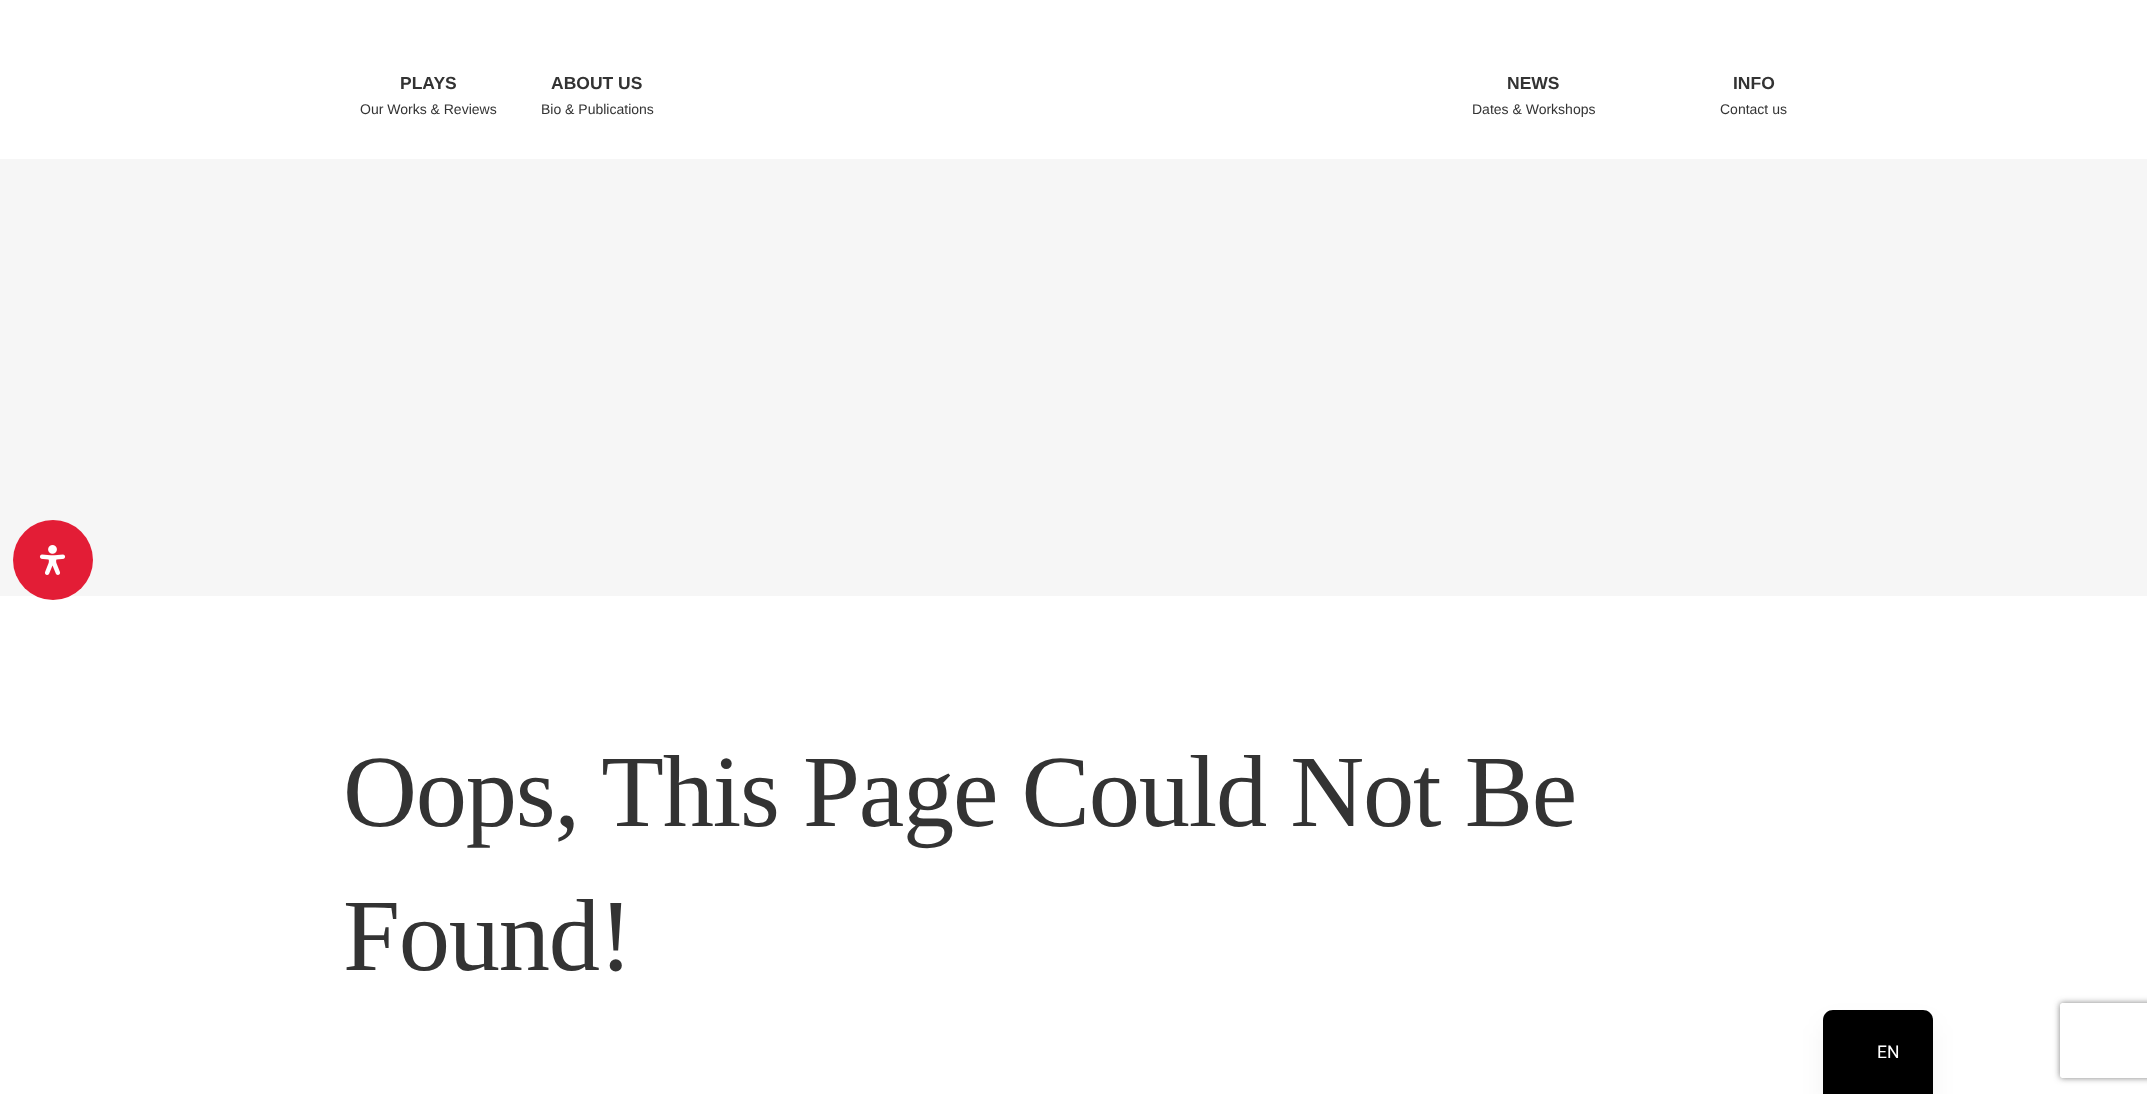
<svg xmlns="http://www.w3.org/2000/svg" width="2147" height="1094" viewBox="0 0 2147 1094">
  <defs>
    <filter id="blur1" x="-50%" y="-200%" width="200%" height="500%"><feGaussianBlur stdDeviation="12.5"/></filter>
    <clipPath id="clip1"><path d="M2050 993H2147V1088H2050ZM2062.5 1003H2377.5C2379 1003 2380 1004 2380 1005.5V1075.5C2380 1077 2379 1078 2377.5 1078H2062.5C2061 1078 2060 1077 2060 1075.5V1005.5C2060 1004 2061 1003 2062.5 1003Z" clip-rule="evenodd"/></clipPath>
    <filter id="blur2" x="-50%" y="-200%" width="200%" height="500%"><feGaussianBlur stdDeviation="3"/></filter>
  </defs>
  <rect width="100%" height="100%" fill="#ffffff"/>
  <text x="400" y="89" font-family="Liberation Sans" font-size="17.5" font-weight="bold" fill="#333333">PLAYS</text>
  <text x="360" y="114" font-family="Liberation Sans" font-size="14" fill="#333333">Our Works &amp; Reviews</text>
  <text x="551" y="89" font-family="Liberation Sans" font-size="17.5" font-weight="bold" fill="#333333">ABOUT US</text>
  <text x="541" y="114" font-family="Liberation Sans" font-size="14" fill="#333333">Bio &amp; Publications</text>
  <text x="1507" y="89" font-family="Liberation Sans" font-size="17.5" font-weight="bold" fill="#333333">NEWS</text>
  <text x="1472" y="114" font-family="Liberation Sans" font-size="14" fill="#333333">Dates &amp; Workshops</text>
  <text x="1733" y="89" font-family="Liberation Sans" font-size="17.5" font-weight="bold" fill="#333333">INFO</text>
  <text x="1720" y="114" font-family="Liberation Sans" font-size="14" fill="#333333">Contact us</text>
  <rect x="0" y="159" width="2147" height="437" fill="#f6f6f6"/>
  <text x="343" y="826" font-family="Liberation Serif" font-size="102.5" letter-spacing="-1.25" fill="#333333">Oops, This Page Could Not Be</text>
  <text x="343" y="970" font-family="Liberation Serif" font-size="102.5" letter-spacing="-1.25" fill="#333333">Found!</text>
  <circle cx="53" cy="560" r="40" fill="#e31d36"/>
  <image x="39" y="545" width="27" height="30" href="img1.png"/>
  <rect x="1823" y="1023" width="110" height="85" rx="10" fill="#000000" fill-opacity="0.05" filter="url(#blur1)"/>
  <path d="M1833 1010H1923C1928.5 1010 1933 1014.5 1933 1020V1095H1823V1020C1823 1014.5 1827.5 1010 1833 1010Z" fill="#000000"/>
  <text x="1877" y="1058" font-family="Roboto" font-size="17.5" fill="#ffffff">EN</text>
  <g clip-path="url(#clip1)">
    <rect x="2060" y="1003" width="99" height="75" rx="2.5" fill="#808080" filter="url(#blur2)"/>
  </g>
</svg>
